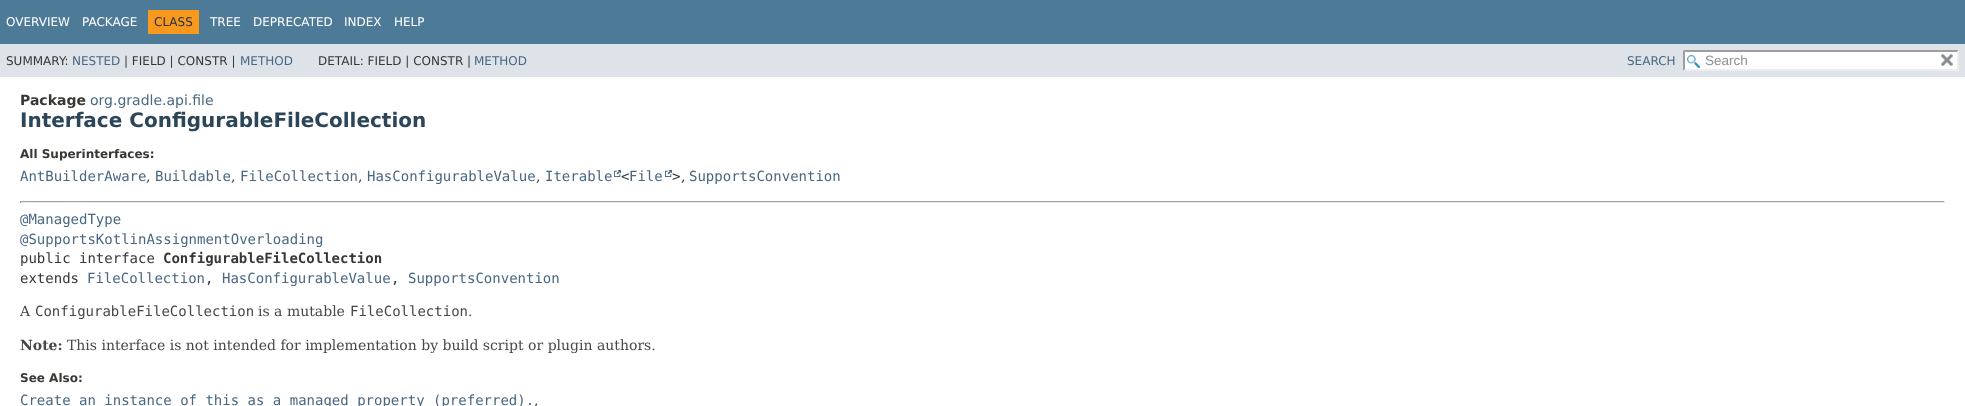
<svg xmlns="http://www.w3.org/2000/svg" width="1965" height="406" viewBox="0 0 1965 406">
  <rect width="100%" height="100%" fill="#ffffff"/>
  <rect x="0" y="0" width="1965" height="44" fill="#4d7a97"/>
  <text x="6" y="26" font-family="DejaVu Sans" font-size="12" fill="#ffffff">OVERVIEW</text>
  <text x="82" y="26" font-family="DejaVu Sans" font-size="12" fill="#ffffff">PACKAGE</text>
  <rect x="148" y="10" width="51" height="24" fill="#f8981d"/>
  <text x="154" y="26" font-family="DejaVu Sans" font-size="12" fill="#253441">CLASS</text>
  <text x="210" y="26" font-family="DejaVu Sans" font-size="12" fill="#ffffff">TREE</text>
  <text x="253" y="26" font-family="DejaVu Sans" font-size="12" fill="#ffffff">DEPRECATED</text>
  <text x="344" y="26" font-family="DejaVu Sans" font-size="12" fill="#ffffff">INDEX</text>
  <text x="394" y="26" font-family="DejaVu Sans" font-size="12" fill="#ffffff">HELP</text>
  <rect x="0" y="44" width="1965" height="33" fill="#dee3e9"/>
  <text x="6" y="65" font-family="DejaVu Sans" font-size="12" fill="#353833">SUMMARY:</text>
  <text x="72" y="65" font-family="DejaVu Sans" font-size="12" fill="#4a6782">NESTED</text>
  <text x="124" y="65" font-family="DejaVu Sans" font-size="12" fill="#353833">| FIELD | CONSTR |</text>
  <text x="240" y="65" font-family="DejaVu Sans" font-size="12" fill="#4a6782">METHOD</text>
  <text x="318" y="65" font-family="DejaVu Sans" font-size="12" fill="#353833">DETAIL: FIELD | CONSTR |</text>
  <text x="474" y="65" font-family="DejaVu Sans" font-size="12" fill="#4a6782">METHOD</text>
  <text x="1627" y="65" font-family="DejaVu Sans" font-size="12" fill="#4a6782">SEARCH</text>
  <rect x="1683" y="50" width="276" height="21" fill="#ffffff"/>
  <image x="1687" y="55" width="13" height="13" href="img1.png"/>
  <path d="M1683 50H1959L1957 52H1685Z" fill="#9e9e9e"/>
  <path d="M1959 50V71L1957 69V52Z" fill="#ededed"/>
  <path d="M1959 71H1683L1685 69H1957Z" fill="#ededed"/>
  <path d="M1683 71V50L1685 52V69Z" fill="#9e9e9e"/>
  <text x="1705" y="65" font-family="Liberation Sans" font-size="13.5" fill="#909090">Search</text>
  <image x="1941" y="53" width="12" height="13" href="img2.png"/>
  <text x="20" y="105" font-family="DejaVu Sans" font-size="14" font-weight="bold" fill="#353833">Package</text>
  <text x="90" y="105" font-family="DejaVu Sans" font-size="14" fill="#4a6782">org.gradle.api.file</text>
  <text x="20" y="127" font-family="DejaVu Sans" font-size="20" font-weight="bold" fill="#2c4557">Interface ConfigurableFileCollection</text>
  <text x="20" y="158" font-family="DejaVu Sans" font-size="12" font-weight="bold" fill="#353833">All Superinterfaces:</text>
  <text x="20" y="181" font-family="DejaVu Sans Mono" font-size="14" fill="#4a6782">AntBuilderAware</text>
  <text x="146" y="181" font-family="DejaVu Serif" font-size="14" fill="#353833">,</text>
  <text x="155" y="181" font-family="DejaVu Sans Mono" font-size="14" fill="#4a6782">Buildable</text>
  <text x="231" y="181" font-family="DejaVu Serif" font-size="14" fill="#353833">,</text>
  <text x="240" y="181" font-family="DejaVu Sans Mono" font-size="14" fill="#4a6782">FileCollection</text>
  <text x="358" y="181" font-family="DejaVu Serif" font-size="14" fill="#353833">,</text>
  <text x="367" y="181" font-family="DejaVu Sans Mono" font-size="14" fill="#4a6782">HasConfigurableValue</text>
  <text x="536" y="181" font-family="DejaVu Serif" font-size="14" fill="#353833">,</text>
  <text x="545" y="181" font-family="DejaVu Sans Mono" font-size="14" fill="#4a6782">Iterable</text>
  <image x="614" y="170" width="7" height="7" href="img3.png"/>
  <text x="621" y="181" font-family="DejaVu Sans Mono" font-size="14" fill="#353833">&lt;</text>
  <text x="629" y="181" font-family="DejaVu Sans Mono" font-size="14" fill="#4a6782">File</text>
  <image x="665" y="170" width="7" height="7" href="img3.png"/>
  <text x="672" y="181" font-family="DejaVu Sans Mono" font-size="14" fill="#353833">&gt;</text>
  <text x="681" y="181" font-family="DejaVu Serif" font-size="14" fill="#353833">,</text>
  <text x="689" y="181" font-family="DejaVu Sans Mono" font-size="14" fill="#4a6782">SupportsConvention</text>
  <rect x="20" y="201" width="1925" height="1" fill="#9f9f9f"/>
  <rect x="1944" y="201" width="1" height="2" fill="#eeeeee"/>
  <rect x="20" y="202" width="1925" height="1" fill="#eeeeee"/>
  <rect x="20" y="201" width="1" height="2" fill="#9f9f9f"/>
  <text x="20" y="224" font-family="DejaVu Sans Mono" font-size="14" fill="#4a6782">@ManagedType</text>
  <text x="20" y="244" font-family="DejaVu Sans Mono" font-size="14" fill="#4a6782">@SupportsKotlinAssignmentOverloading</text>
  <text x="20" y="263" font-family="DejaVu Sans Mono" font-size="14" fill="#353833">public interface</text>
  <text x="163" y="263" font-family="DejaVu Sans Mono" font-size="14" font-weight="bold" fill="#353833">ConfigurableFileCollection</text>
  <text x="20" y="283" font-family="DejaVu Sans Mono" font-size="14" fill="#353833">extends</text>
  <text x="87" y="283" font-family="DejaVu Sans Mono" font-size="14" fill="#4a6782">FileCollection</text>
  <text x="205" y="283" font-family="DejaVu Sans Mono" font-size="14" fill="#353833">,</text>
  <text x="222" y="283" font-family="DejaVu Sans Mono" font-size="14" fill="#4a6782">HasConfigurableValue</text>
  <text x="391" y="283" font-family="DejaVu Sans Mono" font-size="14" fill="#353833">,</text>
  <text x="408" y="283" font-family="DejaVu Sans Mono" font-size="14" fill="#4a6782">SupportsConvention</text>
  <text x="20" y="316" font-family="DejaVu Serif" font-size="14" fill="#474747">A</text>
  <text x="35" y="316" font-family="DejaVu Sans Mono" font-size="14" fill="#474747">ConfigurableFileCollection</text>
  <text x="258" y="316" font-family="DejaVu Serif" font-size="14" fill="#474747">is a mutable</text>
  <text x="350" y="316" font-family="DejaVu Sans Mono" font-size="14" fill="#474747">FileCollection</text>
  <text x="468" y="316" font-family="DejaVu Serif" font-size="14" fill="#474747">.</text>
  <text x="20" y="350" font-family="DejaVu Serif" font-size="14" font-weight="bold" fill="#474747">Note:</text>
  <text x="67" y="350" font-family="DejaVu Serif" font-size="14" fill="#474747">This interface is not intended for implementation by build script or plugin authors.</text>
  <text x="20" y="382" font-family="DejaVu Sans" font-size="12" font-weight="bold" fill="#353833">See Also:</text>
  <text x="20" y="405" font-family="DejaVu Sans Mono" font-size="14" fill="#4a6782">Create an instance of this as a managed property (preferred).</text>
  <text x="534" y="405" font-family="DejaVu Serif" font-size="14" fill="#353833">,</text>
</svg>
